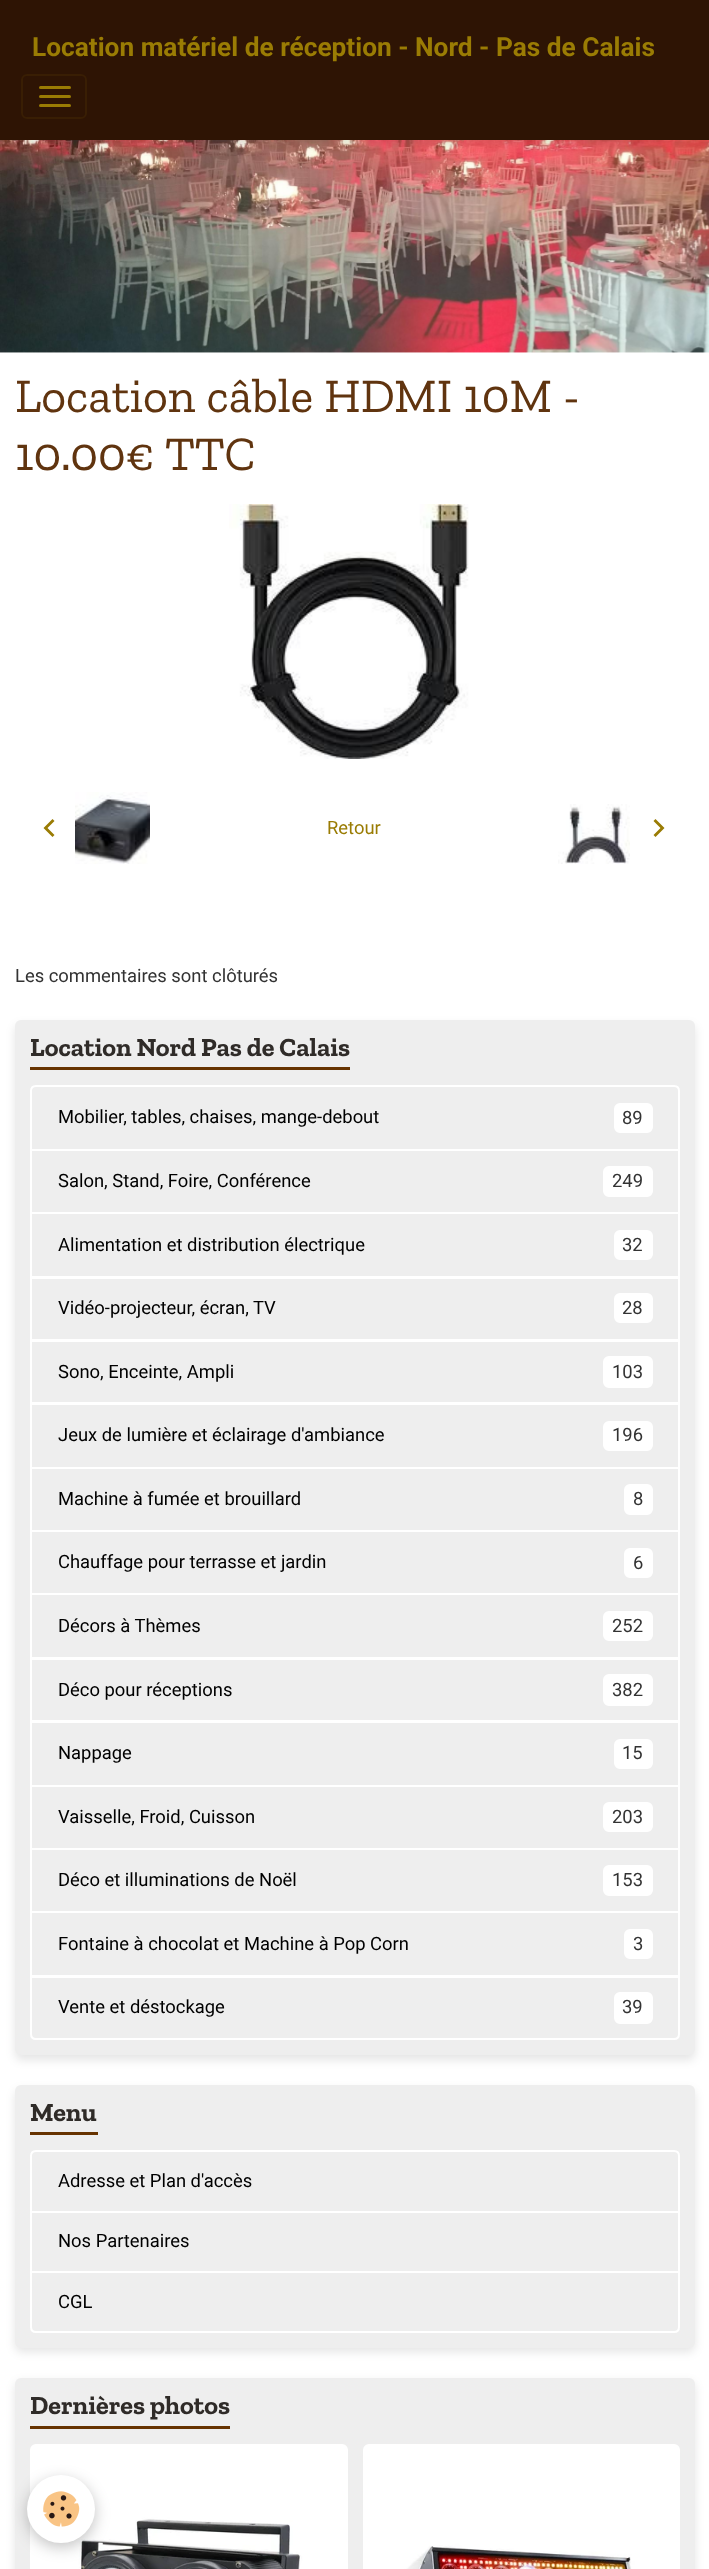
<svg xmlns="http://www.w3.org/2000/svg" width="709" height="2569" viewBox="0 0 709 2569">
  <defs>
    <filter id="blur1" x="-50%" y="-200%" width="200%" height="500%"><feGaussianBlur stdDeviation="5"/></filter>
    <filter id="blur2" x="-50%" y="-200%" width="200%" height="500%"><feGaussianBlur stdDeviation="7.5"/></filter>
  </defs>
  <rect width="100%" height="100%" fill="#ffffff"/>
  <image x="0" y="140" width="709" height="213" href="img1.png"/>
  <rect x="0" y="5" width="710" height="139" fill="#000000" fill-opacity="0.1" filter="url(#blur1)"/>
  <rect x="0" y="0" width="709" height="140" fill="#2e1404"/>
  <text x="32" y="56" font-family="Roboto" font-size="26.25" font-weight="bold" fill="#9a7c04">Location matériel de réception - Nord - Pas de Calais</text>
  <rect x="22" y="75" width="64" height="43" rx="5" fill="none" stroke="#391e04" stroke-width="2"/>
  <rect x="39" y="86" width="32" height="3" rx="1.5" fill="#9a7c04"/>
  <rect x="39" y="95" width="32" height="3" rx="1.5" fill="#9a7c04"/>
  <rect x="39" y="104" width="32" height="3" rx="1.5" fill="#9a7c04"/>
  <text x="15" y="412" font-family="Zilla Slab" font-size="48.25" fill="#60340f">Location câble HDMI 10M -</text>
  <text x="15" y="470" font-family="Zilla Slab" font-size="48.25" fill="#60340f">10.00€ TTC</text>
  <image x="229" y="504" width="240" height="255" href="img2.png"/>
  <path d="M54.5 821L47.5 828L54.5 835L52.5 837L43.5 828L52.5 819Z" fill="#9a7c04"/>
  <image x="75" y="792" width="75" height="72" href="img3.png"/>
  <text x="327" y="834" font-family="Roboto" font-size="18.4" fill="#9a7c04">Retour</text>
  <image x="558" y="804" width="72" height="60" href="img4.png"/>
  <path d="M655.5 819L664.5 828L655.5 837L653.5 835L660.5 828L653.5 821Z" fill="#9a7c04"/>
  <text x="15" y="982" font-family="Roboto" font-size="18.4" fill="#333333">Les commentaires sont clôturés</text>
  <rect x="15" y="1025" width="680" height="1035" rx="6" fill="#000000" fill-opacity="0.1" filter="url(#blur1)"/>
  <rect x="15" y="1020" width="680" height="1035" rx="6" fill="#eeeeee"/>
  <rect x="30" y="1067" width="320" height="3" fill="#663300"/>
  <text x="30" y="1056" font-family="Zilla Slab" font-size="26.25" font-weight="bold" fill="#2f2b28">Location Nord Pas de Calais</text>
  <path d="M36 1086H674C677 1086 679 1088 679 1091V1150H31V1091C31 1088 33 1086 36 1086Z" fill="none" stroke="#ffffff" stroke-width="2"/>
  <text x="58" y="1123" font-family="Roboto" font-size="18.4" fill="#000000">Mobilier, tables, chaises, mange-debout</text>
  <rect x="615" y="1104" width="37" height="28" rx="5" fill="#ffffff" stroke="#ffffff" stroke-width="2"/>
  <text x="622" y="1124" font-family="Roboto" font-size="18.4" fill="#333333">89</text>
  <rect x="31" y="1150" width="648" height="63" fill="none" stroke="#ffffff" stroke-width="2"/>
  <text x="58" y="1187" font-family="Roboto" font-size="18.4" fill="#000000">Salon, Stand, Foire, Conférence</text>
  <rect x="604" y="1167" width="48" height="29" rx="5" fill="#ffffff" stroke="#ffffff" stroke-width="2"/>
  <text x="612" y="1187" font-family="Roboto" font-size="18.4" fill="#333333">249</text>
  <rect x="31" y="1213" width="648" height="64" fill="none" stroke="#ffffff" stroke-width="2"/>
  <text x="58" y="1251" font-family="Roboto" font-size="18.4" fill="#000000">Alimentation et distribution électrique</text>
  <rect x="615" y="1231" width="37" height="28" rx="5" fill="#ffffff" stroke="#ffffff" stroke-width="2"/>
  <text x="622" y="1251" font-family="Roboto" font-size="18.4" fill="#333333">32</text>
  <rect x="31" y="1278" width="648" height="62" fill="none" stroke="#ffffff" stroke-width="2"/>
  <text x="58" y="1314" font-family="Roboto" font-size="18.4" fill="#000000">Vidéo-projecteur, écran, TV</text>
  <rect x="615" y="1294" width="37" height="28" rx="5" fill="#ffffff" stroke="#ffffff" stroke-width="2"/>
  <text x="622" y="1314" font-family="Roboto" font-size="18.4" fill="#333333">28</text>
  <rect x="31" y="1341" width="648" height="62" fill="none" stroke="#ffffff" stroke-width="2"/>
  <text x="58" y="1378" font-family="Roboto" font-size="18.4" fill="#000000">Sono, Enceinte, Ampli</text>
  <rect x="604" y="1357" width="48" height="30" rx="5" fill="#ffffff" stroke="#ffffff" stroke-width="2"/>
  <text x="612" y="1378" font-family="Roboto" font-size="18.4" fill="#333333">103</text>
  <rect x="31" y="1404" width="648" height="64" fill="none" stroke="#ffffff" stroke-width="2"/>
  <text x="58" y="1441" font-family="Roboto" font-size="18.4" fill="#000000">Jeux de lumière et éclairage d'ambiance</text>
  <rect x="604" y="1422" width="48" height="28" rx="5" fill="#ffffff" stroke="#ffffff" stroke-width="2"/>
  <text x="612" y="1441" font-family="Roboto" font-size="18.4" fill="#333333">196</text>
  <rect x="31" y="1468" width="648" height="63" fill="none" stroke="#ffffff" stroke-width="2"/>
  <text x="58" y="1505" font-family="Roboto" font-size="18.4" fill="#000000">Machine à fumée et brouillard</text>
  <rect x="625" y="1485" width="27" height="29" rx="5" fill="#ffffff" stroke="#ffffff" stroke-width="2"/>
  <text x="633" y="1505" font-family="Roboto" font-size="18.4" fill="#333333">8</text>
  <rect x="31" y="1531" width="648" height="63" fill="none" stroke="#ffffff" stroke-width="2"/>
  <text x="58" y="1568" font-family="Roboto" font-size="18.4" fill="#000000">Chauffage pour terrasse et jardin</text>
  <rect x="625" y="1549" width="27" height="28" rx="5" fill="#ffffff" stroke="#ffffff" stroke-width="2"/>
  <text x="633" y="1569" font-family="Roboto" font-size="18.4" fill="#333333">6</text>
  <rect x="31" y="1594" width="648" height="64" fill="none" stroke="#ffffff" stroke-width="2"/>
  <text x="58" y="1632" font-family="Roboto" font-size="18.4" fill="#000000">Décors à Thèmes</text>
  <rect x="604" y="1612" width="48" height="28" rx="5" fill="#ffffff" stroke="#ffffff" stroke-width="2"/>
  <text x="612" y="1632" font-family="Roboto" font-size="18.4" fill="#333333">252</text>
  <rect x="31" y="1659" width="648" height="62" fill="none" stroke="#ffffff" stroke-width="2"/>
  <text x="58" y="1696" font-family="Roboto" font-size="18.4" fill="#000000">Déco pour réceptions</text>
  <rect x="604" y="1675" width="48" height="30" rx="5" fill="#ffffff" stroke="#ffffff" stroke-width="2"/>
  <text x="612" y="1696" font-family="Roboto" font-size="18.4" fill="#333333">382</text>
  <rect x="31" y="1722" width="648" height="64" fill="none" stroke="#ffffff" stroke-width="2"/>
  <text x="58" y="1759" font-family="Roboto" font-size="18.4" fill="#000000">Nappage</text>
  <rect x="615" y="1740" width="37" height="28" rx="5" fill="#ffffff" stroke="#ffffff" stroke-width="2"/>
  <text x="622" y="1759" font-family="Roboto" font-size="18.4" fill="#333333">15</text>
  <rect x="31" y="1786" width="648" height="63" fill="none" stroke="#ffffff" stroke-width="2"/>
  <text x="58" y="1823" font-family="Roboto" font-size="18.4" fill="#000000">Vaisselle, Froid, Cuisson</text>
  <rect x="604" y="1803" width="48" height="28" rx="5" fill="#ffffff" stroke="#ffffff" stroke-width="2"/>
  <text x="612" y="1823" font-family="Roboto" font-size="18.4" fill="#333333">203</text>
  <rect x="31" y="1849" width="648" height="63" fill="none" stroke="#ffffff" stroke-width="2"/>
  <text x="58" y="1886" font-family="Roboto" font-size="18.4" fill="#000000">Déco et illuminations de Noël</text>
  <rect x="604" y="1866" width="48" height="29" rx="5" fill="#ffffff" stroke="#ffffff" stroke-width="2"/>
  <text x="612" y="1886" font-family="Roboto" font-size="18.4" fill="#333333">153</text>
  <rect x="31" y="1912" width="648" height="64" fill="none" stroke="#ffffff" stroke-width="2"/>
  <text x="58" y="1950" font-family="Roboto" font-size="18.4" fill="#000000">Fontaine à chocolat et Machine à Pop Corn</text>
  <rect x="625" y="1930" width="27" height="28" rx="5" fill="#ffffff" stroke="#ffffff" stroke-width="2"/>
  <text x="633" y="1950" font-family="Roboto" font-size="18.4" fill="#333333">3</text>
  <path d="M31 1977H679V2034C679 2037 677 2039 674 2039H36C33 2039 31 2037 31 2034Z" fill="none" stroke="#ffffff" stroke-width="2"/>
  <text x="58" y="2013" font-family="Roboto" font-size="18.4" fill="#000000">Vente et déstockage</text>
  <rect x="615" y="1993" width="37" height="30" rx="5" fill="#ffffff" stroke="#ffffff" stroke-width="2"/>
  <text x="622" y="2013" font-family="Roboto" font-size="18.4" fill="#333333">39</text>
  <rect x="15" y="2090" width="680" height="262" rx="6" fill="#000000" fill-opacity="0.1" filter="url(#blur1)"/>
  <rect x="15" y="2085" width="680" height="263" rx="6" fill="#eeeeee"/>
  <rect x="30" y="2132" width="68" height="3" fill="#663300"/>
  <text x="30" y="2121" font-family="Zilla Slab" font-size="26.25" font-weight="bold" fill="#2f2b28">Menu</text>
  <path d="M36 2151H674C677 2151 679 2153 679 2156V2212H31V2156C31 2153 33 2151 36 2151Z" fill="none" stroke="#ffffff" stroke-width="2"/>
  <text x="58" y="2187" font-family="Roboto" font-size="18.4" fill="#000000">Adresse et Plan d'accès</text>
  <rect x="31" y="2212" width="648" height="60" fill="none" stroke="#ffffff" stroke-width="2"/>
  <text x="58" y="2247" font-family="Roboto" font-size="18.4" fill="#000000">Nos Partenaires</text>
  <path d="M31 2272H679V2327C679 2330 677 2332 674 2332H36C33 2332 31 2330 31 2327Z" fill="none" stroke="#ffffff" stroke-width="2"/>
  <text x="58" y="2308" font-family="Roboto" font-size="18.4" fill="#000000">CGL</text>
  <rect x="15" y="2382" width="680" height="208" rx="6" fill="#000000" fill-opacity="0.1" filter="url(#blur1)"/>
  <rect x="15" y="2378" width="680" height="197" rx="6" fill="#eeeeee"/>
  <rect x="30" y="2426" width="200" height="3" fill="#663300"/>
  <text x="30" y="2414" font-family="Zilla Slab" font-size="26.25" font-weight="bold" fill="#2f2b28">Dernières photos</text>
  <rect x="31" y="2445" width="316" height="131" rx="5" fill="none" stroke="#ffffff" stroke-width="2"/>
  <image x="32" y="2446" width="314" height="123" href="img5.png"/>
  <rect x="364" y="2445" width="315" height="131" rx="5" fill="none" stroke="#ffffff" stroke-width="2"/>
  <image x="365" y="2446" width="313" height="123" href="img6.png"/>
  <rect x="27" y="2480" width="68" height="67" rx="33.5" fill="#000000" fill-opacity="0.24" filter="url(#blur2)"/>
  <circle cx="61" cy="2509" r="34" fill="#ffffff"/>
  <image x="43" y="2491" width="37" height="36" href="img7.png"/>
</svg>
